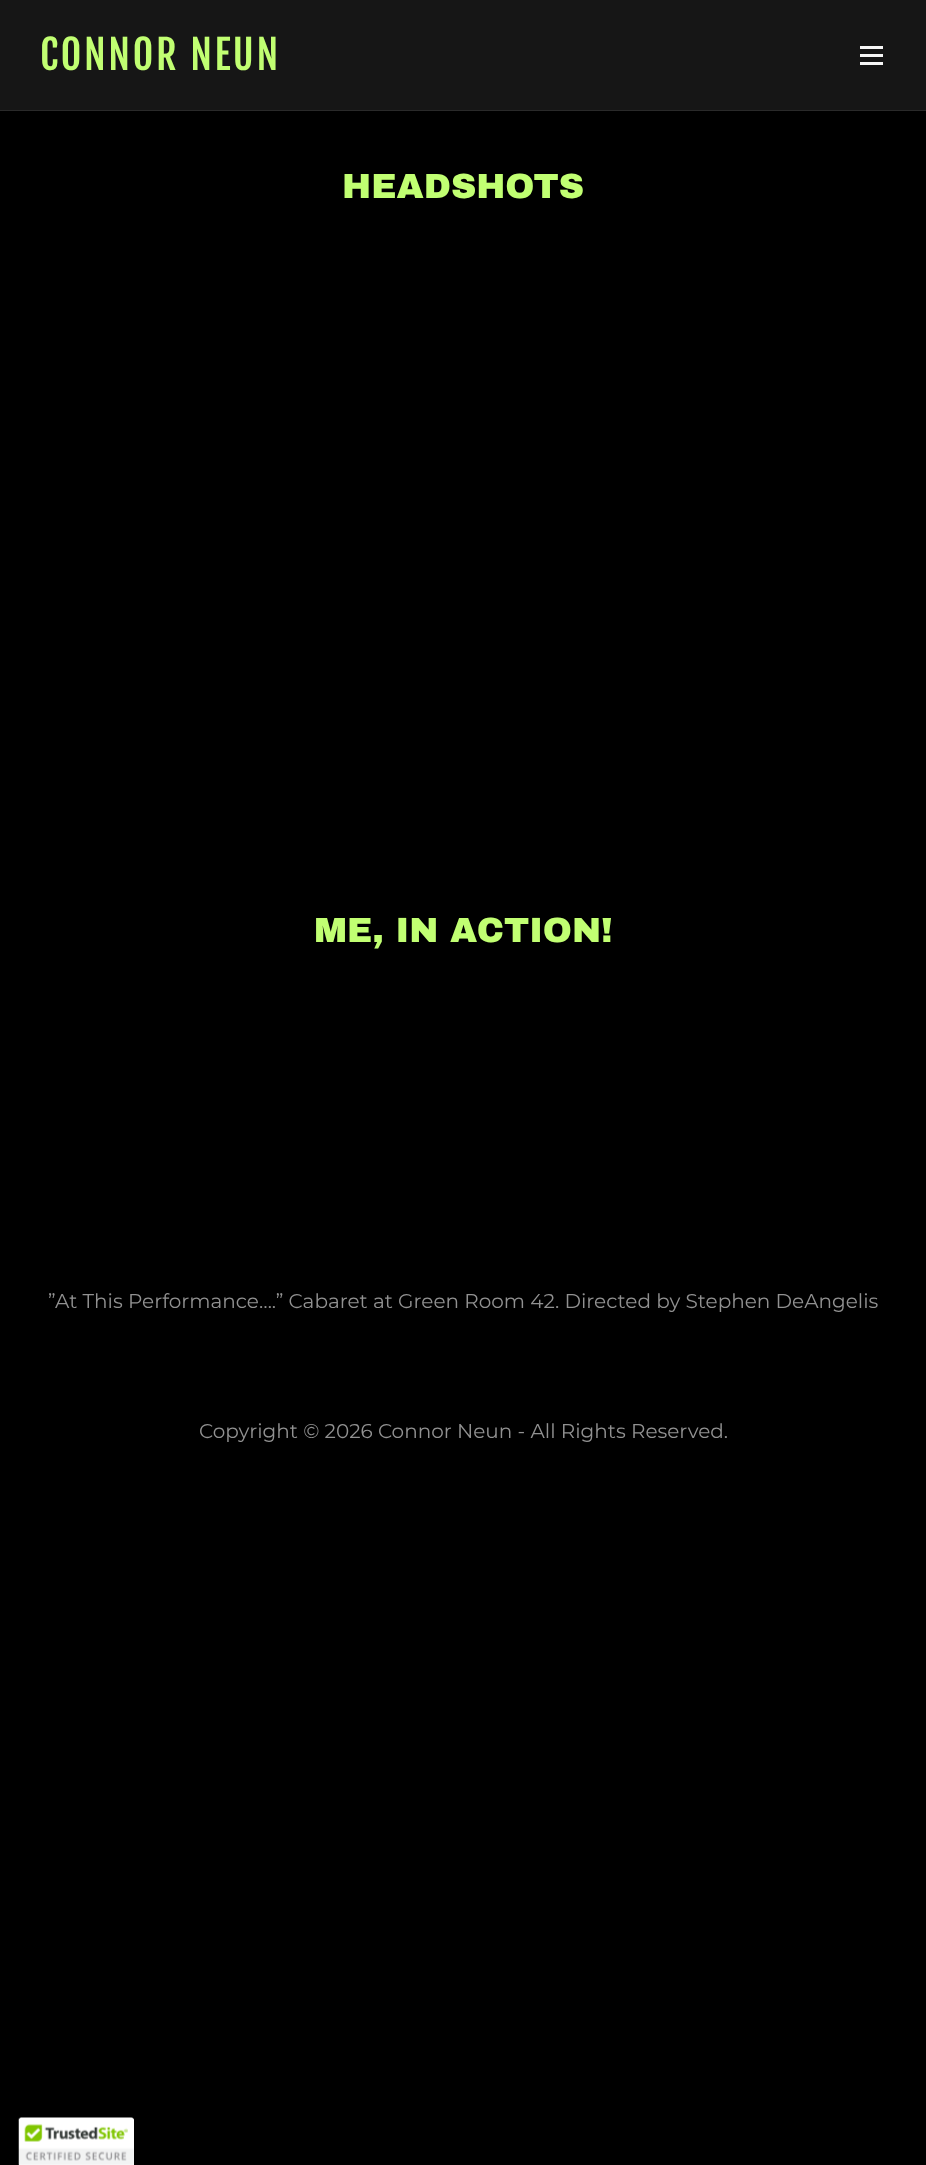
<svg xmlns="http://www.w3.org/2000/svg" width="926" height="2165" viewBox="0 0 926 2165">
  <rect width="100%" height="100%" fill="#000000"/>
  <rect x="0" y="0" width="926" height="110" fill="#161616"/>
  <text x="40" y="70" font-family="Fjalla One" font-size="40" letter-spacing="2.5" fill="#c1ff72">CONNOR NEUN</text>
  <rect x="860" y="46" width="23" height="3" fill="#f7f7f7"/>
  <rect x="860" y="54" width="23" height="3" fill="#f7f7f7"/>
  <rect x="860" y="62" width="23" height="3" fill="#f7f7f7"/>
  <rect x="0" y="110" width="926" height="1" fill="#2a2a2a"/>
  <text x="342" y="198" font-family="Archivo Black" font-size="35" font-weight="900" fill="#c1ff72">HEADSHOTS</text>
  <text x="314" y="942" font-family="Archivo Black" font-size="35" font-weight="900" fill="#c1ff72">ME, IN ACTION!</text>
  <text x="48" y="1308" font-family="Montserrat" font-size="20" fill="#919191">”At This Performance….” Cabaret at Green Room 42. Directed by Stephen DeAngelis</text>
  <text x="199" y="1438" font-family="Montserrat" font-size="20" fill="#919191">Copyright © 2026 Connor Neun - All Rights Reserved.</text>
  <path d="M21.5 2118H131.5C133 2118 134 2119 134 2120.5V2165H19V2120.5C19 2119 20 2118 21.5 2118Z" fill="#ffffff"/>
  <image x="18" y="2117" width="116" height="48" href="img1.png"/>
</svg>
